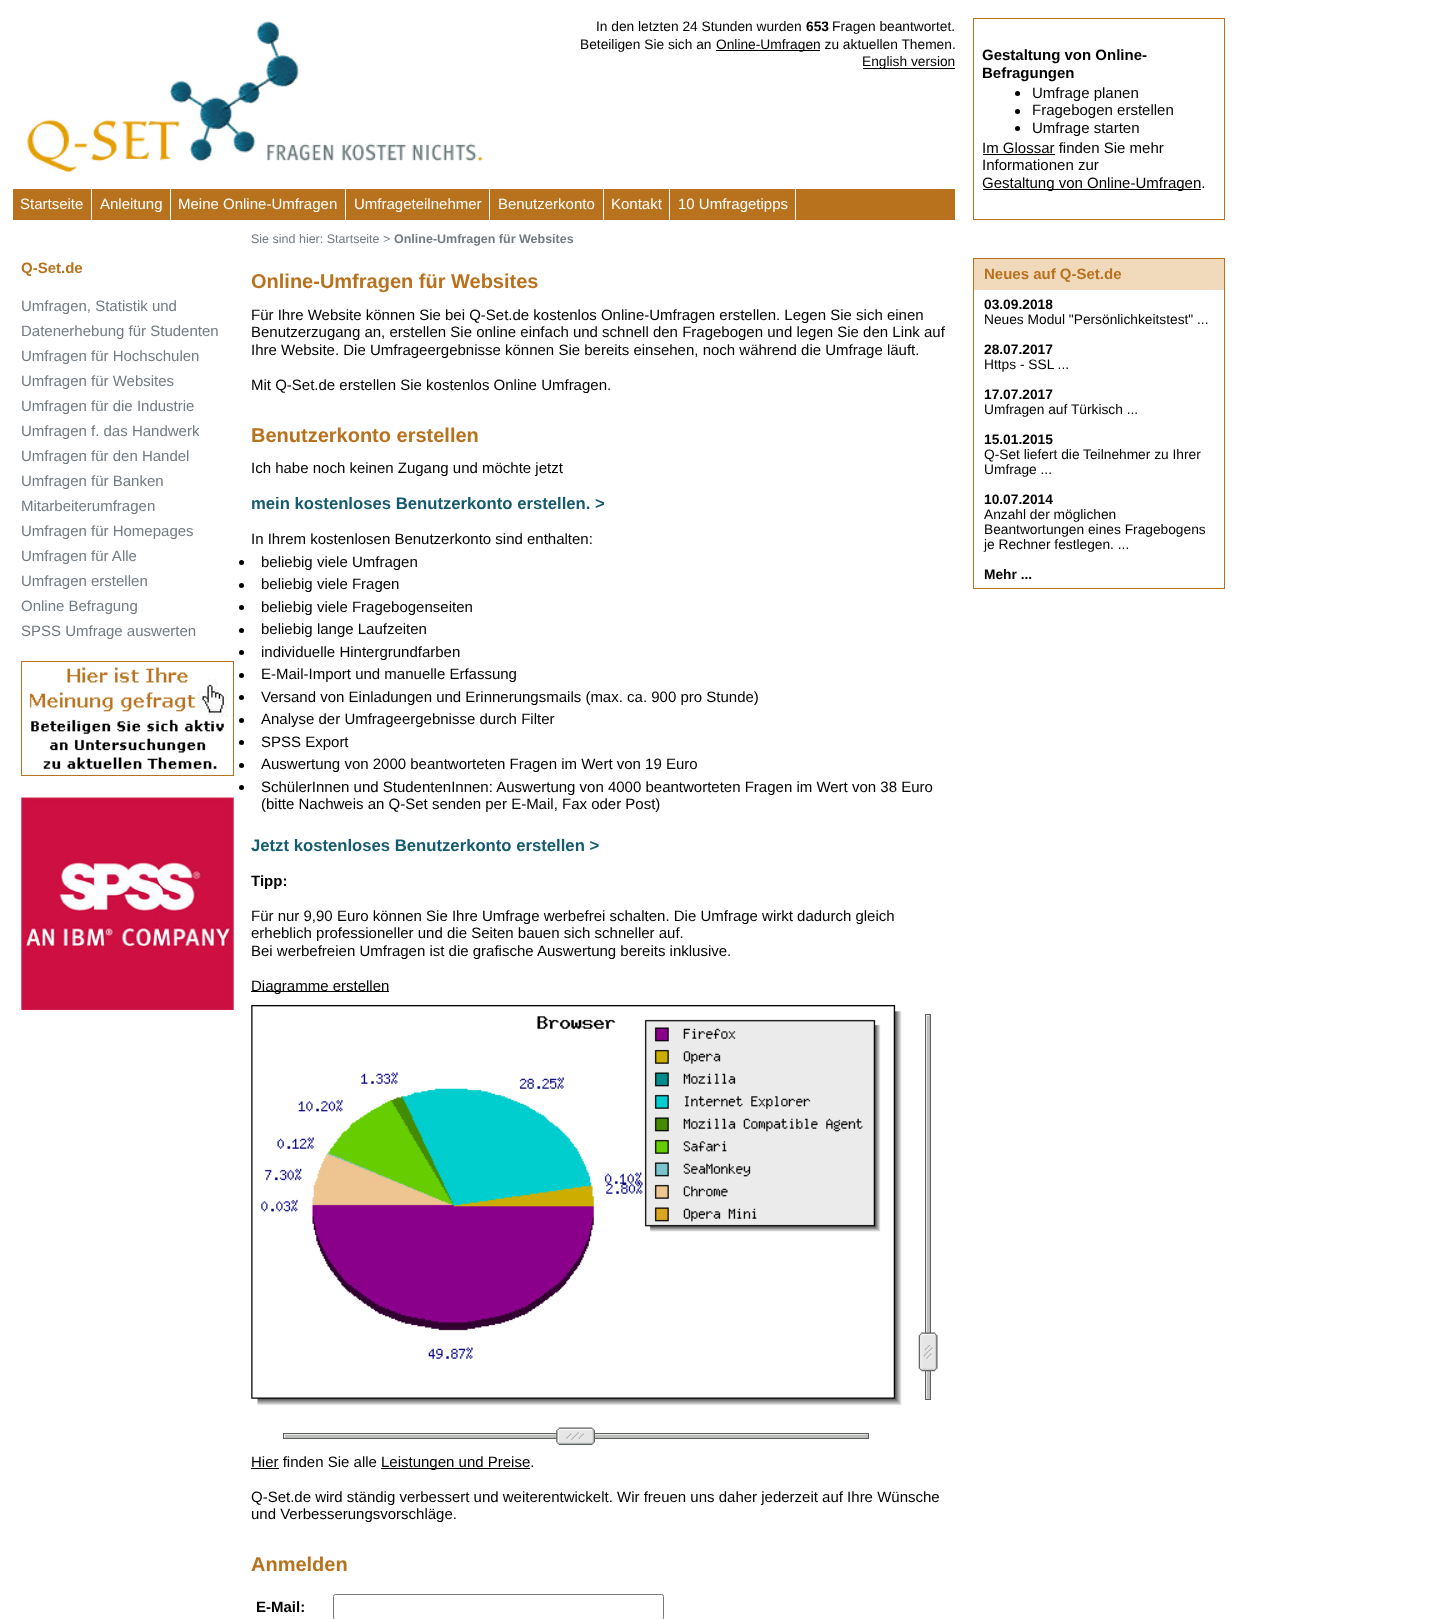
<svg xmlns="http://www.w3.org/2000/svg" width="1444" height="1619" viewBox="0 0 1444 1619">
  <rect width="100%" height="100%" fill="#ffffff"/>
  <image x="27" y="21" width="456" height="152" href="img1.png"/>
  <text x="596" y="31" font-family="Liberation Sans" font-size="13.75" fill="#000000">In den letzten 24 Stunden wurden</text>
  <text x="806" y="31" font-family="Liberation Sans" font-size="13.75" font-weight="bold" fill="#000000">653</text>
  <text x="832" y="31" font-family="Liberation Sans" font-size="13.75" fill="#000000">Fragen beantwortet.</text>
  <text x="580" y="49" font-family="Liberation Sans" font-size="13.75" fill="#000000">Beteiligen Sie sich an</text>
  <rect x="716" y="50" width="104" height="1" fill="#000000"/>
  <text x="716" y="49" font-family="Liberation Sans" font-size="13.75" fill="#000000">Online-Umfragen zu aktuellen Themen.</text>
  <rect x="863" y="68" width="92" height="1" fill="#000000"/>
  <text x="862" y="66" font-family="Liberation Sans" font-size="13.75" fill="#000000">English version</text>
  <rect x="973.5" y="18.5" width="251" height="201" fill="none" stroke="#b8721d"/>
  <text x="982" y="60" font-family="Liberation Sans" font-size="15" font-weight="bold" fill="#000000">Gestaltung von Online-</text>
  <text x="982" y="78" font-family="Liberation Sans" font-size="15" font-weight="bold" fill="#000000">Befragungen</text>
  <circle cx="1017.5" cy="93.5" r="2.5" fill="#000000"/>
  <text x="1032" y="98" font-family="Liberation Sans" font-size="15" fill="#000000">Umfrage planen</text>
  <circle cx="1017.5" cy="111.5" r="2.5" fill="#000000"/>
  <text x="1032" y="115" font-family="Liberation Sans" font-size="15" fill="#000000">Fragebogen erstellen</text>
  <circle cx="1017.5" cy="128.5" r="2.5" fill="#000000"/>
  <text x="1032" y="133" font-family="Liberation Sans" font-size="15" fill="#000000">Umfrage starten</text>
  <text x="982" y="153" font-family="Liberation Sans" font-size="15" fill="#000000">Im Glossar finden Sie mehr</text>
  <rect x="983" y="154" width="72" height="1" fill="#000000"/>
  <text x="982" y="170" font-family="Liberation Sans" font-size="15" fill="#000000">Informationen zur</text>
  <rect x="983" y="189" width="218" height="1" fill="#000000"/>
  <text x="982" y="188" font-family="Liberation Sans" font-size="15" fill="#000000">Gestaltung von Online-Umfragen.</text>
  <rect x="13" y="189" width="157" height="31" fill="#b8721d"/>
  <rect x="91" y="189" width="1" height="31" fill="#ffffff"/>
  <text x="20" y="209" font-family="Liberation Sans" font-size="15" fill="#ffffff">Startseite</text>
  <text x="100" y="209" font-family="Liberation Sans" font-size="15" fill="#ffffff">Anleitung</text>
  <rect x="171" y="189" width="174" height="31" fill="#b8721d"/>
  <text x="178" y="209" font-family="Liberation Sans" font-size="15" fill="#ffffff">Meine Online-Umfragen</text>
  <rect x="346" y="189" width="143" height="31" fill="#b8721d"/>
  <text x="354" y="209" font-family="Liberation Sans" font-size="15" fill="#ffffff">Umfrageteilnehmer</text>
  <rect x="490" y="189" width="113" height="31" fill="#b8721d"/>
  <text x="498" y="209" font-family="Liberation Sans" font-size="15" fill="#ffffff">Benutzerkonto</text>
  <rect x="604" y="189" width="65" height="31" fill="#b8721d"/>
  <text x="611" y="209" font-family="Liberation Sans" font-size="15" fill="#ffffff">Kontakt</text>
  <rect x="670" y="189" width="125" height="31" fill="#b8721d"/>
  <text x="678" y="209" font-family="Liberation Sans" font-size="15" fill="#ffffff">10 Umfragetipps</text>
  <rect x="796" y="189" width="159" height="31" fill="#b8721d"/>
  <text x="251" y="243" font-family="Liberation Sans" font-size="12.5" fill="#727b82">Sie sind hier: Startseite &gt;</text>
  <text x="394" y="243" font-family="Liberation Sans" font-size="12.5" font-weight="bold" fill="#727b82">Online-Umfragen für Websites</text>
  <text x="21" y="273" font-family="Liberation Sans" font-size="15" font-weight="bold" fill="#b8721d">Q-Set.de</text>
  <text x="21" y="311" font-family="Liberation Sans" font-size="15" fill="#727b82">Umfragen, Statistik und</text>
  <text x="21" y="336" font-family="Liberation Sans" font-size="15" fill="#727b82">Datenerhebung für Studenten</text>
  <text x="21" y="361" font-family="Liberation Sans" font-size="15" fill="#727b82">Umfragen für Hochschulen</text>
  <text x="21" y="386" font-family="Liberation Sans" font-size="15" fill="#727b82">Umfragen für Websites</text>
  <text x="21" y="411" font-family="Liberation Sans" font-size="15" fill="#727b82">Umfragen für die Industrie</text>
  <text x="21" y="436" font-family="Liberation Sans" font-size="15" fill="#727b82">Umfragen f. das Handwerk</text>
  <text x="21" y="461" font-family="Liberation Sans" font-size="15" fill="#727b82">Umfragen für den Handel</text>
  <text x="21" y="486" font-family="Liberation Sans" font-size="15" fill="#727b82">Umfragen für Banken</text>
  <text x="21" y="511" font-family="Liberation Sans" font-size="15" fill="#727b82">Mitarbeiterumfragen</text>
  <text x="21" y="536" font-family="Liberation Sans" font-size="15" fill="#727b82">Umfragen für Homepages</text>
  <text x="21" y="561" font-family="Liberation Sans" font-size="15" fill="#727b82">Umfragen für Alle</text>
  <text x="21" y="586" font-family="Liberation Sans" font-size="15" fill="#727b82">Umfragen erstellen</text>
  <text x="21" y="611" font-family="Liberation Sans" font-size="15" fill="#727b82">Online Befragung</text>
  <text x="21" y="636" font-family="Liberation Sans" font-size="15" fill="#727b82">SPSS Umfrage auswerten</text>
  <rect x="21.5" y="661.5" width="212" height="114" fill="none" stroke="#b8721d"/>
  <image x="29" y="667" width="199" height="102" href="img2.png"/>
  <image x="21" y="797" width="213" height="213" href="img3.png"/>
  <text x="251" y="288" font-family="Liberation Sans" font-size="20" font-weight="bold" fill="#b8721d">Online-Umfragen für Websites</text>
  <text x="251" y="320" font-family="Liberation Sans" font-size="15" fill="#000000">Für Ihre Website können Sie bei Q-Set.de kostenlos Online-Umfragen erstellen. Legen Sie sich einen</text>
  <text x="251" y="337" font-family="Liberation Sans" font-size="15" fill="#000000">Benutzerzugang an, erstellen Sie online einfach und schnell den Fragebogen und legen Sie den Link auf</text>
  <text x="251" y="355" font-family="Liberation Sans" font-size="15" fill="#000000">Ihre Website. Die Umfrageergebnisse können Sie bereits einsehen, noch während die Umfrage läuft.</text>
  <text x="251" y="390" font-family="Liberation Sans" font-size="15" fill="#000000">Mit Q-Set.de erstellen Sie kostenlos Online Umfragen.</text>
  <text x="251" y="442" font-family="Liberation Sans" font-size="20" font-weight="bold" fill="#b8721d">Benutzerkonto erstellen</text>
  <text x="251" y="473" font-family="Liberation Sans" font-size="15" fill="#000000">Ich habe noch keinen Zugang und möchte jetzt</text>
  <text x="251" y="509" font-family="Liberation Sans" font-size="16.7" font-weight="bold" fill="#145a71">mein kostenloses Benutzerkonto erstellen. &gt;</text>
  <text x="251" y="544" font-family="Liberation Sans" font-size="15" fill="#000000">In Ihrem kostenlosen Benutzerkonto sind enthalten:</text>
  <circle cx="241.5" cy="562.5" r="2.5" fill="#000000"/>
  <text x="261" y="567" font-family="Liberation Sans" font-size="15" fill="#000000">beliebig viele Umfragen</text>
  <circle cx="241.5" cy="585.5" r="2.5" fill="#000000"/>
  <text x="261" y="589" font-family="Liberation Sans" font-size="15" fill="#000000">beliebig viele Fragen</text>
  <circle cx="241.5" cy="607.5" r="2.5" fill="#000000"/>
  <text x="261" y="612" font-family="Liberation Sans" font-size="15" fill="#000000">beliebig viele Fragebogenseiten</text>
  <circle cx="241.5" cy="630.5" r="2.5" fill="#000000"/>
  <text x="261" y="634" font-family="Liberation Sans" font-size="15" fill="#000000">beliebig lange Laufzeiten</text>
  <circle cx="241.5" cy="652.5" r="2.5" fill="#000000"/>
  <text x="261" y="657" font-family="Liberation Sans" font-size="15" fill="#000000">individuelle Hintergrundfarben</text>
  <circle cx="241.5" cy="675.5" r="2.5" fill="#000000"/>
  <text x="261" y="679" font-family="Liberation Sans" font-size="15" fill="#000000">E-Mail-Import und manuelle Erfassung</text>
  <circle cx="241.5" cy="697.5" r="2.5" fill="#000000"/>
  <text x="261" y="702" font-family="Liberation Sans" font-size="15" fill="#000000">Versand von Einladungen und Erinnerungsmails (max. ca. 900 pro Stunde)</text>
  <circle cx="241.5" cy="720.5" r="2.5" fill="#000000"/>
  <text x="261" y="724" font-family="Liberation Sans" font-size="15" fill="#000000">Analyse der Umfrageergebnisse durch Filter</text>
  <circle cx="241.5" cy="742.5" r="2.5" fill="#000000"/>
  <text x="261" y="747" font-family="Liberation Sans" font-size="15" fill="#000000">SPSS Export</text>
  <circle cx="241.5" cy="765.5" r="2.5" fill="#000000"/>
  <text x="261" y="769" font-family="Liberation Sans" font-size="15" fill="#000000">Auswertung von 2000 beantworteten Fragen im Wert von 19 Euro</text>
  <circle cx="241.5" cy="787.5" r="2.5" fill="#000000"/>
  <text x="261" y="792" font-family="Liberation Sans" font-size="15" fill="#000000">SchülerInnen und StudentenInnen: Auswertung von 4000 beantworteten Fragen im Wert von 38 Euro</text>
  <text x="261" y="809" font-family="Liberation Sans" font-size="15" fill="#000000">(bitte Nachweis an Q-Set senden per E-Mail, Fax oder Post)</text>
  <text x="251" y="851" font-family="Liberation Sans" font-size="16.7" font-weight="bold" fill="#145a71">Jetzt kostenloses Benutzerkonto erstellen &gt;</text>
  <text x="251" y="886" font-family="Liberation Sans" font-size="15" font-weight="bold" fill="#000000">Tipp:</text>
  <text x="251" y="921" font-family="Liberation Sans" font-size="15" fill="#000000">Für nur 9,90 Euro können Sie Ihre Umfrage werbefrei schalten. Die Umfrage wirkt dadurch gleich</text>
  <text x="251" y="938" font-family="Liberation Sans" font-size="15" fill="#000000">erheblich professioneller und die Seiten bauen sich schneller auf.</text>
  <text x="251" y="956" font-family="Liberation Sans" font-size="15" fill="#000000">Bei werbefreien Umfragen ist die grafische Auswertung bereits inklusive.</text>
  <rect x="251" y="991" width="138" height="1" fill="#000000"/>
  <text x="251" y="991" font-family="Liberation Sans" font-size="15" fill="#000000">Diagramme erstellen</text>
  <image x="251" y="1005" width="651" height="400" href="img4.png"/>
  <rect x="927" y="1014" width="2" height="386" fill="#bdbebd"/>
  <rect x="925.5" y="1014.5" width="5" height="385" fill="none" stroke="#5a615a"/>
  <rect x="926" y="1015" width="4" height="1" fill="#e6e6e6"/>
  <rect x="929" y="1015" width="1" height="384" fill="#bdbebd"/>
  <rect x="926" y="1015" width="1" height="384" fill="#e6e6e6"/>
  <image x="918" y="1332" width="20" height="40" href="img5.png"/>
  <rect x="283" y="1435" width="586" height="3" fill="#bdbebd"/>
  <rect x="283.5" y="1433.5" width="585" height="5" fill="none" stroke="#5a615a"/>
  <rect x="284" y="1434" width="584" height="1" fill="#e6e6e6"/>
  <image x="556" y="1427" width="39" height="18" href="img6.png"/>
  <rect x="866" y="1434" width="1" height="4" fill="#bdbebd"/>
  <rect x="284" y="1434" width="1" height="4" fill="#e6e6e6"/>
  <text x="251" y="1467" font-family="Liberation Sans" font-size="15" fill="#000000">Hier finden Sie alle</text>
  <rect x="251" y="1468" width="28" height="1" fill="#000000"/>
  <rect x="381" y="1468" width="149" height="1" fill="#000000"/>
  <text x="381" y="1467" font-family="Liberation Sans" font-size="15" fill="#000000">Leistungen und Preise.</text>
  <text x="251" y="1502" font-family="Liberation Sans" font-size="15" fill="#000000">Q-Set.de wird ständig verbessert und weiterentwickelt. Wir freuen uns daher jederzeit auf Ihre Wünsche</text>
  <text x="251" y="1519" font-family="Liberation Sans" font-size="15" fill="#000000">und Verbesserungsvorschläge.</text>
  <text x="251" y="1571" font-family="Liberation Sans" font-size="20" font-weight="bold" fill="#b8721d">Anmelden</text>
  <text x="256" y="1612" font-family="Liberation Sans" font-size="15" font-weight="bold" fill="#000000">E-Mail:</text>
  <rect x="333.5" y="1594.5" width="330" height="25" rx="2" fill="none" stroke="#767676"/>
  <rect x="973.5" y="258.5" width="251" height="330" fill="none" stroke="#b8721d"/>
  <rect x="974" y="259" width="250" height="31" fill="#f1d9bc"/>
  <text x="984" y="279" font-family="Liberation Sans" font-size="15" font-weight="bold" fill="#b8721d">Neues auf Q-Set.de</text>
  <text x="984" y="309" font-family="Liberation Sans" font-size="13.75" font-weight="bold" fill="#000000">03.09.2018</text>
  <text x="984" y="324" font-family="Liberation Sans" font-size="13.75" fill="#000000">Neues Modul "Persönlichkeitstest" ...</text>
  <text x="984" y="354" font-family="Liberation Sans" font-size="13.75" font-weight="bold" fill="#000000">28.07.2017</text>
  <text x="984" y="369" font-family="Liberation Sans" font-size="13.75" fill="#000000">Https - SSL ...</text>
  <text x="984" y="399" font-family="Liberation Sans" font-size="13.75" font-weight="bold" fill="#000000">17.07.2017</text>
  <text x="984" y="414" font-family="Liberation Sans" font-size="13.75" fill="#000000">Umfragen auf Türkisch ...</text>
  <text x="984" y="444" font-family="Liberation Sans" font-size="13.75" font-weight="bold" fill="#000000">15.01.2015</text>
  <text x="984" y="459" font-family="Liberation Sans" font-size="13.75" fill="#000000">Q-Set liefert die Teilnehmer zu Ihrer</text>
  <text x="984" y="474" font-family="Liberation Sans" font-size="13.75" fill="#000000">Umfrage ...</text>
  <text x="984" y="504" font-family="Liberation Sans" font-size="13.75" font-weight="bold" fill="#000000">10.07.2014</text>
  <text x="984" y="519" font-family="Liberation Sans" font-size="13.75" fill="#000000">Anzahl der möglichen</text>
  <text x="984" y="534" font-family="Liberation Sans" font-size="13.75" fill="#000000">Beantwortungen eines Fragebogens</text>
  <text x="984" y="549" font-family="Liberation Sans" font-size="13.75" fill="#000000">je Rechner festlegen. ...</text>
  <text x="984" y="579" font-family="Liberation Sans" font-size="13.75" font-weight="bold" fill="#000000">Mehr ...</text>
</svg>
